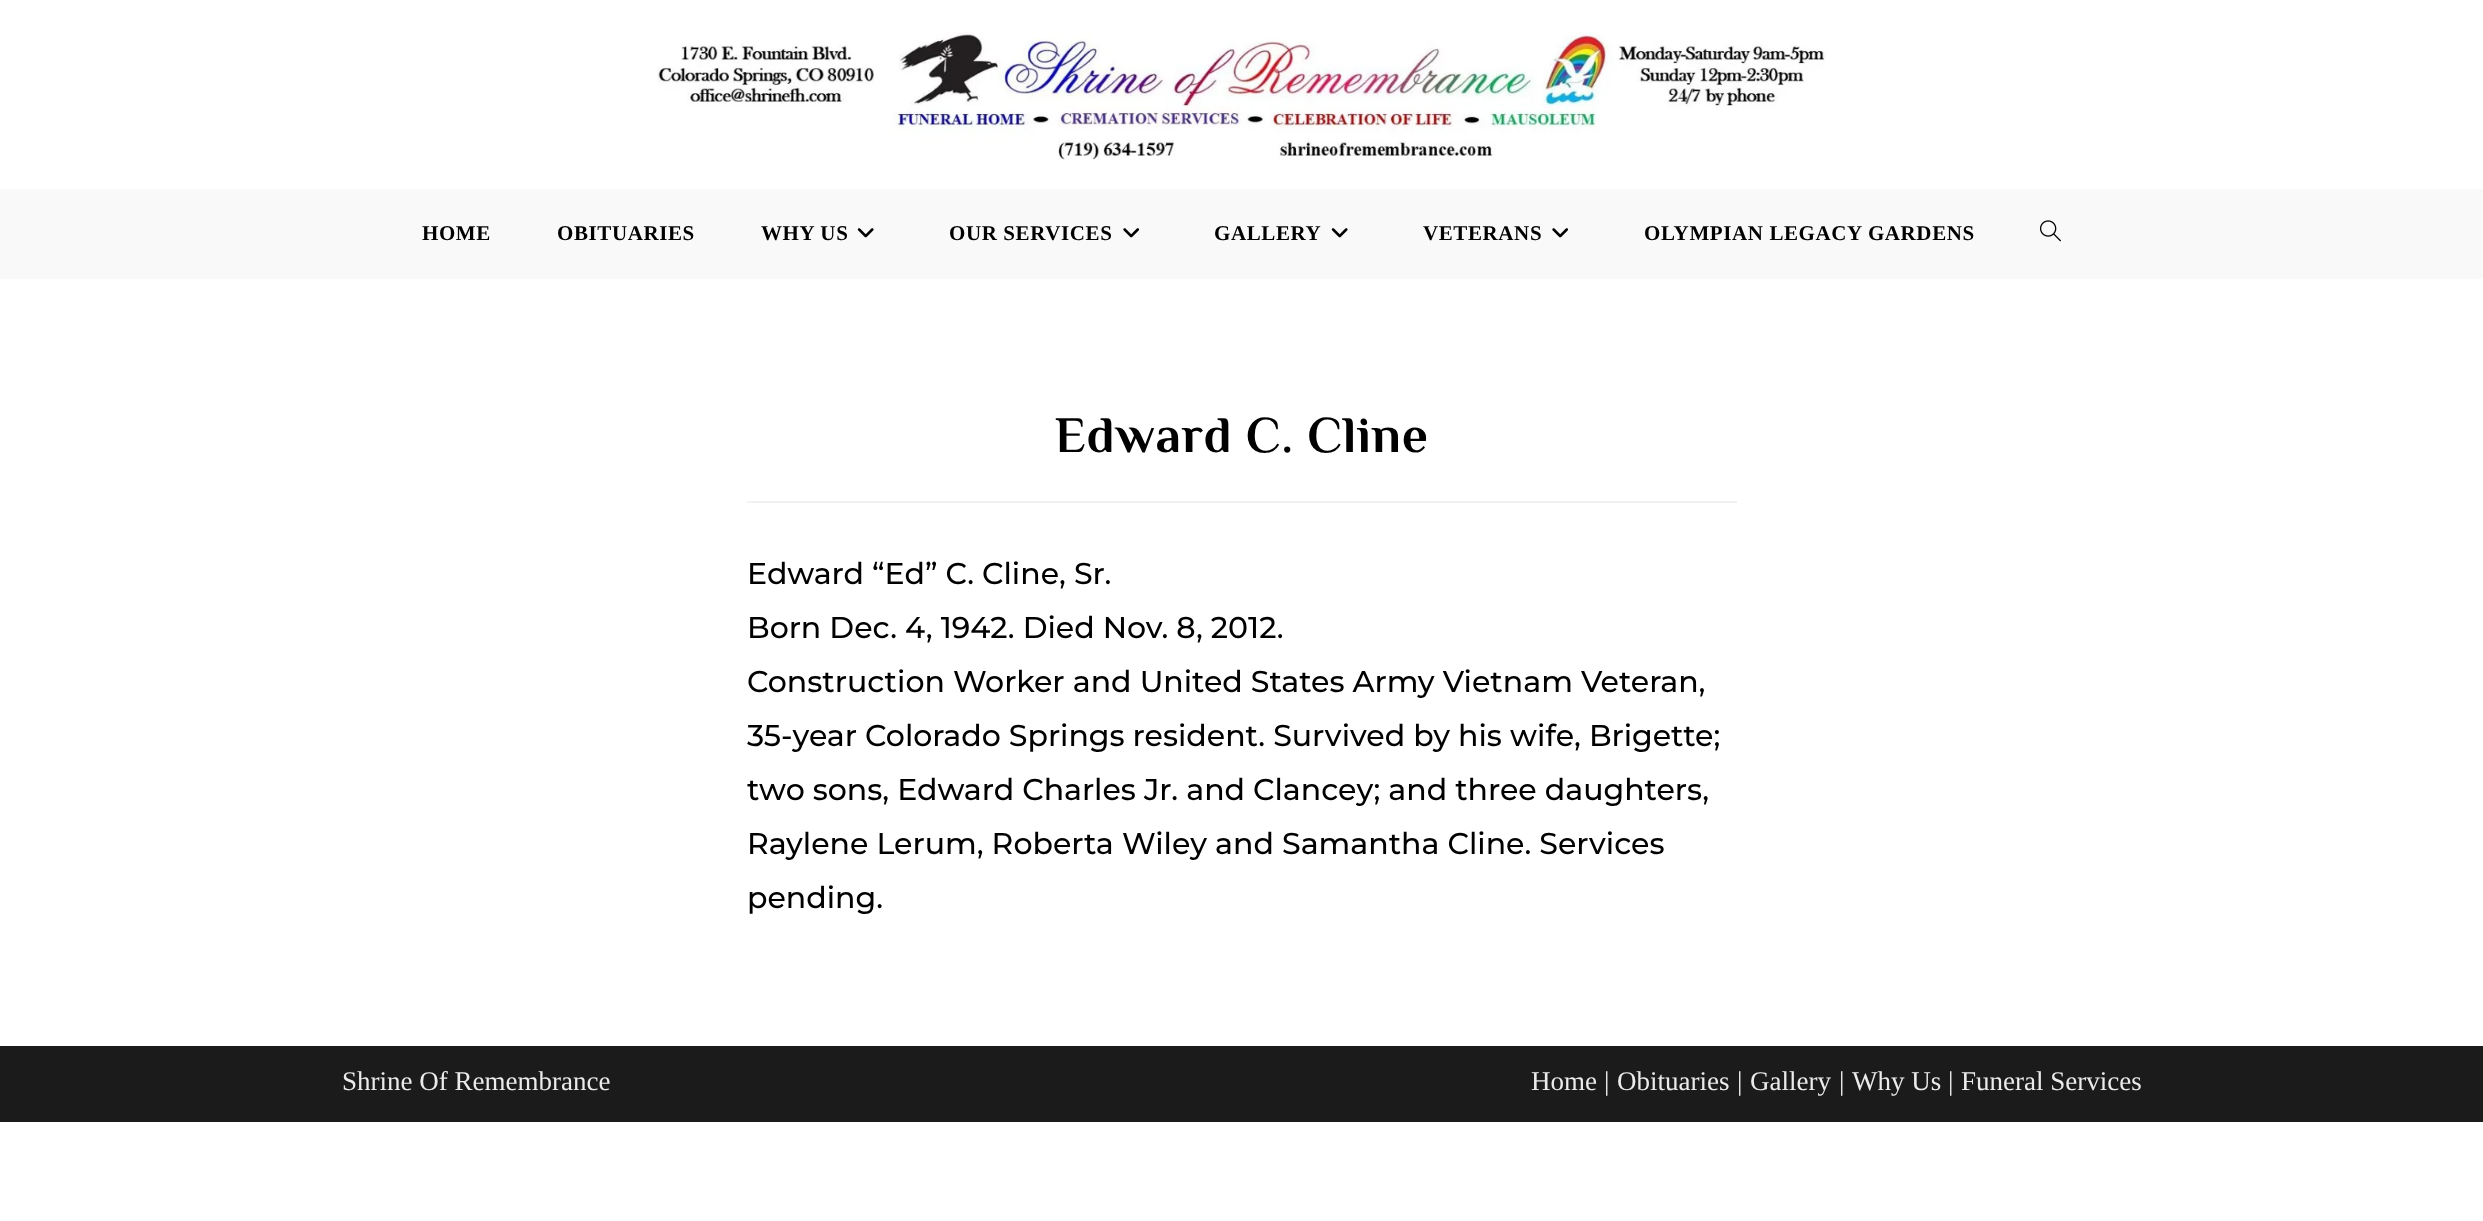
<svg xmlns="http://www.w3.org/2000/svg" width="2483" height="1221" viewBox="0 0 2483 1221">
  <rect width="100%" height="100%" fill="#ffffff"/>
  <image x="657" y="32" width="1169" height="128" href="img1.png"/>
  <rect x="0" y="189" width="2483" height="90" fill="#f9f9f9"/>
  <text x="422" y="240" font-family="Liberation Serif" font-size="21" font-weight="bold" letter-spacing="0.6" fill="#000000">HOME</text>
  <text x="557" y="240" font-family="Liberation Serif" font-size="21" font-weight="bold" letter-spacing="0.6" fill="#000000">OBITUARIES</text>
  <text x="761" y="240" font-family="Liberation Serif" font-size="21" font-weight="bold" letter-spacing="0.6" fill="#000000">WHY US</text>
  <image x="857" y="228" width="17" height="10" href="img2.png"/>
  <text x="949" y="240" font-family="Liberation Serif" font-size="21" font-weight="bold" letter-spacing="0.6" fill="#000000">OUR SERVICES</text>
  <image x="1123" y="228" width="16" height="10" href="img3.png"/>
  <text x="1214" y="240" font-family="Liberation Serif" font-size="21" font-weight="bold" letter-spacing="0.6" fill="#000000">GALLERY</text>
  <image x="1331" y="228" width="17" height="10" href="img2.png"/>
  <text x="1423" y="240" font-family="Liberation Serif" font-size="21" font-weight="bold" letter-spacing="0.6" fill="#000000">VETERANS</text>
  <image x="1552" y="228" width="16" height="10" href="img3.png"/>
  <text x="1644" y="240" font-family="Liberation Serif" font-size="21" font-weight="bold" letter-spacing="0.6" fill="#000000">OLYMPIAN LEGACY GARDENS</text>
  <image x="2039" y="220" width="22" height="22" href="img4.png"/>
  <rect x="747" y="501" width="990" height="2" fill="#f1f1f1"/>
  <text x="1055" y="452" font-family="Philosopher" font-size="51" font-weight="bold" letter-spacing="0.9" fill="#000000">Edward C. Cline</text>
  <text x="747" y="584" font-family="Montserrat" font-size="30" font-weight="500" fill="#000000">Edward “Ed” C. Cline, Sr.</text>
  <text x="747" y="638" font-family="Montserrat" font-size="30" font-weight="500" fill="#000000">Born Dec. 4, 1942. Died Nov. 8, 2012.</text>
  <text x="747" y="692" font-family="Montserrat" font-size="30" font-weight="500" fill="#000000">Construction Worker and United States Army Vietnam Veteran,</text>
  <text x="747" y="746" font-family="Montserrat" font-size="30" font-weight="500" fill="#000000">35-year Colorado Springs resident. Survived by his wife, Brigette;</text>
  <text x="747" y="800" font-family="Montserrat" font-size="30" font-weight="500" fill="#000000">two sons, Edward Charles Jr. and Clancey; and three daughters,</text>
  <text x="747" y="854" font-family="Montserrat" font-size="30" font-weight="500" fill="#000000">Raylene Lerum, Roberta Wiley and Samantha Cline. Services</text>
  <text x="747" y="908" font-family="Montserrat" font-size="30" font-weight="500" fill="#000000">pending.</text>
  <rect x="0" y="1046" width="2483" height="76" fill="#1b1b1b"/>
  <text x="342" y="1090" font-family="Liberation Serif" font-size="27" fill="#ebebeb">Shrine Of Remembrance</text>
  <text x="1531" y="1090" font-family="Liberation Serif" font-size="27" fill="#ebebeb">Home</text>
  <text x="1604" y="1090" font-family="Liberation Serif" font-size="27" fill="#ebebeb">|</text>
  <text x="1617" y="1090" font-family="Liberation Serif" font-size="27" fill="#ebebeb">Obituaries</text>
  <text x="1737" y="1090" font-family="Liberation Serif" font-size="27" fill="#ebebeb">|</text>
  <text x="1750" y="1090" font-family="Liberation Serif" font-size="27" fill="#ebebeb">Gallery</text>
  <text x="1839" y="1090" font-family="Liberation Serif" font-size="27" fill="#ebebeb">|</text>
  <text x="1852" y="1090" font-family="Liberation Serif" font-size="27" fill="#ebebeb">Why Us</text>
  <text x="1948" y="1090" font-family="Liberation Serif" font-size="27" fill="#ebebeb">|</text>
  <text x="1961" y="1090" font-family="Liberation Serif" font-size="27" fill="#ebebeb">Funeral Services</text>
</svg>
